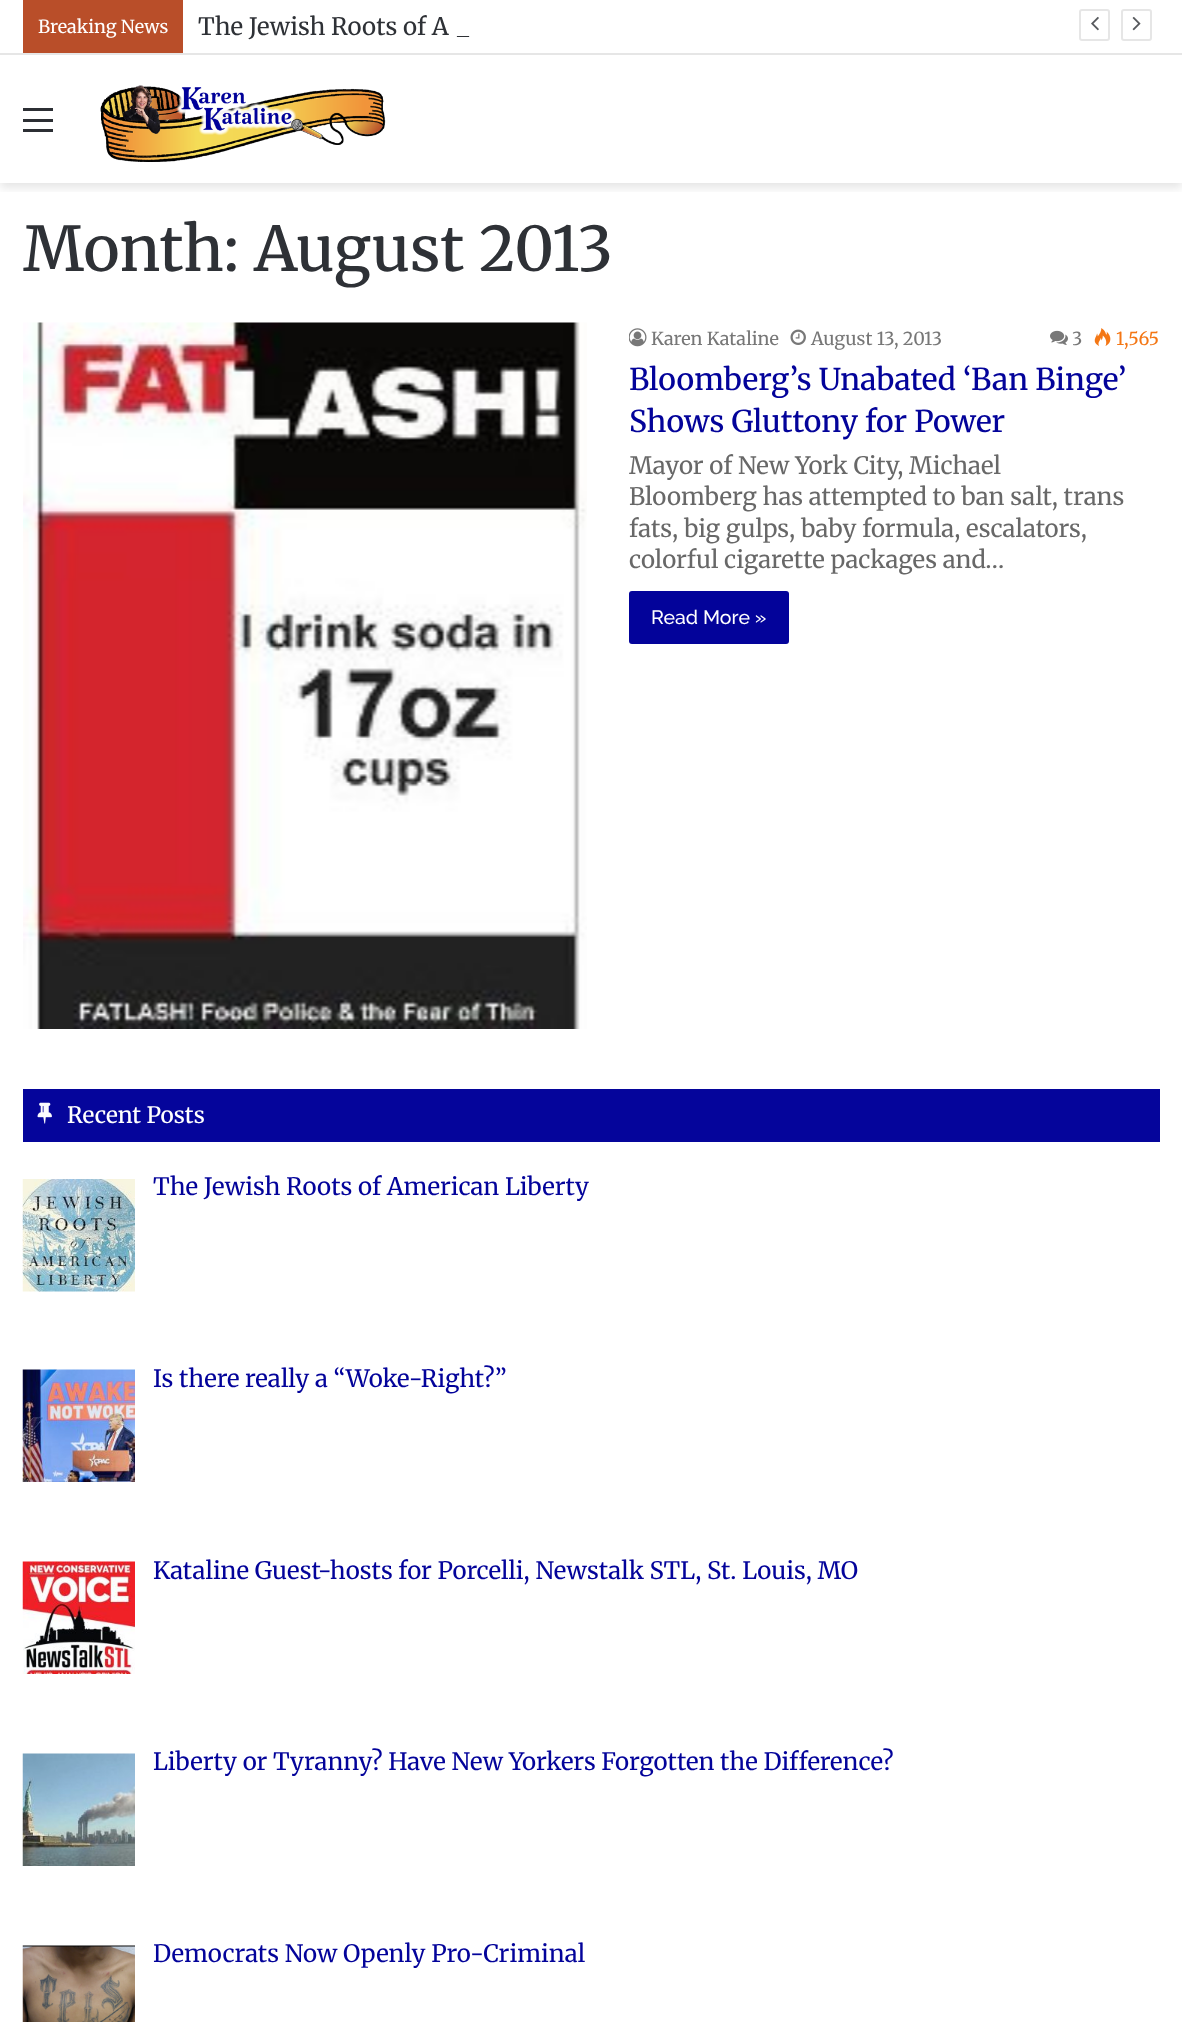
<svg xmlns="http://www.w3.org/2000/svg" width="1182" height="2022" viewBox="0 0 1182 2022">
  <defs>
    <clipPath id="clip1"><rect x="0" y="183" width="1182" height="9"/></clipPath>
    <filter id="blur1" x="-50%" y="-200%" width="200%" height="500%"><feGaussianBlur stdDeviation="5"/></filter>
  </defs>
  <rect width="100%" height="100%" fill="#ffffff"/>
  <g clip-path="url(#clip1)">
    <rect x="0" y="59" width="1182" height="129" fill="#000000" fill-opacity="0.1" filter="url(#blur1)"/>
  </g>
  <rect x="0" y="53" width="1182" height="2" fill="#e6e6e6"/>
  <rect x="23" y="0" width="160" height="53" fill="#b94e29"/>
  <text x="38" y="33" font-family="Merriweather" font-size="18" fill="#ffffff">Breaking News</text>
  <text x="198" y="35" font-family="Merriweather" font-size="24" fill="#2e3136">The Jewish Roots of A</text>
  <text x="457" y="35" font-family="Merriweather" font-size="24" fill="#2e3136">_</text>
  <rect x="1080" y="10" width="29" height="30" rx="2" fill="none" stroke="#e6e6e6" stroke-width="2"/>
  <image x="1091" y="16" width="8" height="15" href="img1.png"/>
  <rect x="1122" y="10" width="29" height="30" rx="2" fill="none" stroke="#e6e6e6" stroke-width="2"/>
  <image x="1132" y="16" width="9" height="15" href="img2.png"/>
  <rect x="23" y="119" width="30" height="3" fill="#2c2f34"/>
  <rect x="23" y="108" width="30" height="3" fill="#2c2f34"/>
  <rect x="23" y="129" width="30" height="3" fill="#2c2f34"/>
  <image x="100" y="85" width="286" height="77" href="img3.png"/>
  <text x="23" y="271" font-family="Merriweather" font-size="61.5" font-weight="500" fill="#2e3136">Month: August 2013</text>
  <image x="23" y="322" width="564" height="707" href="img4.png"/>
  <image x="629" y="328" width="18" height="19" href="img5.png"/>
  <text x="651" y="345" font-family="Merriweather" font-size="18" fill="#777777">Karen Kataline</text>
  <image x="790" y="329" width="16" height="16" href="img6.png"/>
  <text x="811" y="345" font-family="Merriweather" font-size="18" fill="#777777">August 13, 2013</text>
  <image x="1050" y="330" width="18" height="15" href="img7.png"/>
  <text x="1072" y="345" font-family="Merriweather" font-size="18" fill="#777777">3</text>
  <image x="1094" y="328" width="17" height="18" href="img8.png"/>
  <text x="1116" y="345" font-family="Merriweather" font-size="18" fill="#f47614">1,565</text>
  <text x="629" y="390" font-family="Merriweather" font-size="30" font-weight="500" fill="#03039a">Bloomberg’s Unabated ‘Ban Binge’</text>
  <text x="629" y="432" font-family="Merriweather" font-size="30" font-weight="500" fill="#03039a">Shows Gluttony for Power</text>
  <text x="629" y="474" font-family="Merriweather" font-size="24" fill="#686868">Mayor of New York City, Michael</text>
  <text x="629" y="505" font-family="Merriweather" font-size="24" fill="#686868">Bloomberg has attempted to ban salt, trans</text>
  <text x="629" y="537" font-family="Merriweather" font-size="24" fill="#686868">fats, big gulps, baby formula, escalators,</text>
  <text x="629" y="568" font-family="Merriweather" font-size="24" fill="#686868">colorful cigarette packages and…</text>
  <rect x="629" y="591" width="160" height="53" rx="3" fill="#03039a"/>
  <text x="651" y="624" font-family="Raleway" font-size="19.5" font-weight="500" fill="#ffffff">Read More »</text>
  <rect x="23" y="1089" width="1137" height="53" fill="#05059b"/>
  <image x="37" y="1102" width="15" height="22" href="img9.png"/>
  <text x="67" y="1123" font-family="Merriweather" font-size="22.5" font-weight="500" fill="#ffffff">Recent Posts</text>
  <image x="22" y="1179" width="113" height="113" href="img10.png"/>
  <text x="153" y="1195" font-family="Merriweather" font-size="24" fill="#03039a">The Jewish Roots of American Liberty</text>
  <image x="22" y="1369" width="113" height="113" href="img11.png"/>
  <text x="153" y="1387" font-family="Merriweather" font-size="24" fill="#03039a">Is there really a “Woke-Right?”</text>
  <image x="22" y="1561" width="113" height="113" href="img12.png"/>
  <text x="153" y="1579" font-family="Merriweather" font-size="24" fill="#03039a">Kataline Guest-hosts for Porcelli, Newstalk STL, St. Louis, MO</text>
  <image x="22" y="1753" width="113" height="113" href="img13.png"/>
  <text x="153" y="1770" font-family="Merriweather" font-size="24" fill="#03039a">Liberty or Tyranny? Have New Yorkers Forgotten the Difference?</text>
  <image x="22" y="1945" width="113" height="77" href="img14.png"/>
  <text x="153" y="1962" font-family="Merriweather" font-size="24" fill="#03039a">Democrats Now Openly Pro-Criminal</text>
</svg>
